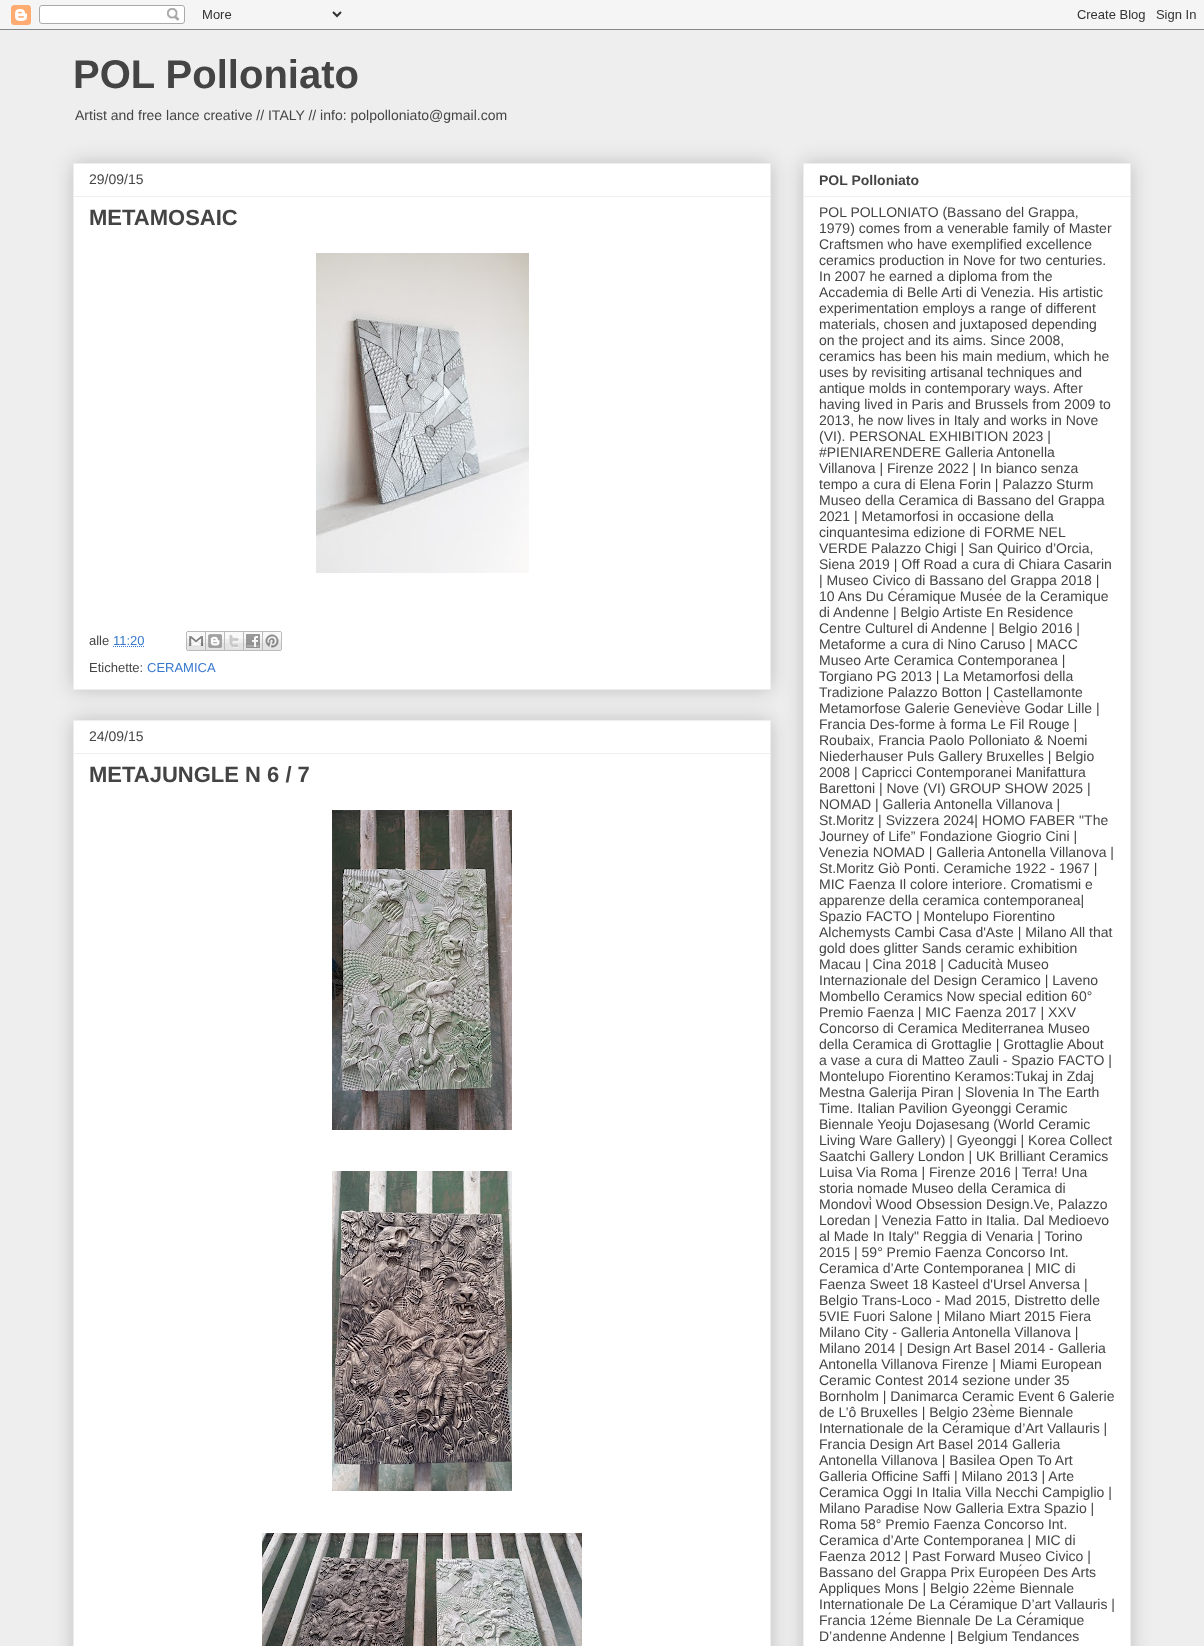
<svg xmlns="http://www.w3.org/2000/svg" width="1204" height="1646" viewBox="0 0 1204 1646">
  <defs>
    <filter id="blur1" x="-50%" y="-200%" width="200%" height="500%"><feGaussianBlur stdDeviation="10"/></filter>
  </defs>
  <rect width="100%" height="100%" fill="#eeeeee"/>
  <image x="0" y="0" width="1204" height="30" href="img1.png"/>
  <text x="73" y="88" font-family="Liberation Sans" font-size="40" font-weight="bold" fill="#444444">POL Polloniato</text>
  <text x="75" y="120" font-family="Liberation Sans" font-size="14" fill="#444444">Artist and free lance creative // ITALY // info: polpolloniato@gmail.com</text>
  <rect x="73" y="163" width="698" height="527" fill="#000000" fill-opacity="0.2" filter="url(#blur1)"/>
  <rect x="73.5" y="163.5" width="697" height="526" fill="#ffffff" stroke="#eeeeee"/>
  <text x="89" y="184" font-family="Liberation Sans" font-size="14" fill="#444444">29/09/15</text>
  <rect x="74" y="196" width="696" height="1" fill="#eeeeee"/>
  <text x="89" y="225" font-family="Liberation Sans" font-size="22" font-weight="bold" fill="#444444">METAMOSAIC</text>
  <image x="316" y="253" width="213" height="320" href="img2.png"/>
  <text x="89" y="645" font-family="Liberation Sans" font-size="13" fill="#444444">alle</text>
  <text x="113" y="645" font-family="Liberation Sans" font-size="13" fill="#3778cd">11:20</text>
  <path d="M113 646.5H144.5" fill="none" stroke="#3778cd" stroke-dasharray="1 1"/>
  <image x="186" y="631" width="20" height="20" href="img3.png"/>
  <image x="206" y="631" width="19" height="20" href="img4.png"/>
  <image x="225" y="631" width="19" height="20" href="img5.png"/>
  <image x="244" y="631" width="19" height="20" href="img6.png"/>
  <image x="263" y="631" width="19" height="20" href="img7.png"/>
  <text x="89" y="672" font-family="Liberation Sans" font-size="13" fill="#444444">Etichette:</text>
  <text x="147" y="672" font-family="Liberation Sans" font-size="13" fill="#3778cd">CERAMICA</text>
  <rect x="73" y="720" width="698" height="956" fill="#000000" fill-opacity="0.2" filter="url(#blur1)"/>
  <rect x="73.5" y="720.5" width="697" height="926" fill="#ffffff" stroke="#eeeeee"/>
  <text x="89" y="741" font-family="Liberation Sans" font-size="14" fill="#444444">24/09/15</text>
  <rect x="74" y="753" width="696" height="1" fill="#eeeeee"/>
  <text x="89" y="782" font-family="Liberation Sans" font-size="22" font-weight="bold" fill="#444444">METAJUNGLE N 6 / 7</text>
  <image x="332" y="810" width="180" height="320" href="img8.png"/>
  <image x="332" y="1171" width="180" height="320" href="img9.png"/>
  <image x="262" y="1533" width="320" height="113" href="img10.png"/>
  <rect x="803" y="163" width="328" height="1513" fill="#000000" fill-opacity="0.2" filter="url(#blur1)"/>
  <rect x="803.5" y="163.5" width="327" height="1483" fill="#ffffff" stroke="#eeeeee"/>
  <text x="819" y="185" font-family="Liberation Sans" font-size="14" font-weight="bold" fill="#444444">POL Polloniato</text>
  <rect x="804" y="196" width="326" height="1" fill="#eeeeee"/>
  <text x="819" y="217" font-family="Liberation Sans" font-size="14" fill="#444444">POL POLLONIATO (Bassano del Grappa,</text>
  <text x="819" y="233" font-family="Liberation Sans" font-size="14" fill="#444444">1979) comes from a venerable family of Master</text>
  <text x="819" y="249" font-family="Liberation Sans" font-size="14" fill="#444444">Craftsmen who have exemplified excellence</text>
  <text x="819" y="265" font-family="Liberation Sans" font-size="14" fill="#444444">ceramics production in Nove for two centuries.</text>
  <text x="819" y="281" font-family="Liberation Sans" font-size="14" fill="#444444">In 2007 he earned a diploma from the</text>
  <text x="819" y="297" font-family="Liberation Sans" font-size="14" fill="#444444">Accademia di Belle Arti di Venezia. His artistic</text>
  <text x="819" y="313" font-family="Liberation Sans" font-size="14" fill="#444444">experimentation employs a range of different</text>
  <text x="819" y="329" font-family="Liberation Sans" font-size="14" fill="#444444">materials, chosen and juxtaposed depending</text>
  <text x="819" y="345" font-family="Liberation Sans" font-size="14" fill="#444444">on the project and its aims. Since 2008,</text>
  <text x="819" y="361" font-family="Liberation Sans" font-size="14" fill="#444444">ceramics has been his main medium, which he</text>
  <text x="819" y="377" font-family="Liberation Sans" font-size="14" fill="#444444">uses by revisiting artisanal techniques and</text>
  <text x="819" y="393" font-family="Liberation Sans" font-size="14" fill="#444444">antique molds in contemporary ways. After</text>
  <text x="819" y="409" font-family="Liberation Sans" font-size="14" fill="#444444">having lived in Paris and Brussels from 2009 to</text>
  <text x="819" y="425" font-family="Liberation Sans" font-size="14" fill="#444444">2013, he now lives in Italy and works in Nove</text>
  <text x="819" y="441" font-family="Liberation Sans" font-size="14" fill="#444444">(VI). PERSONAL EXHIBITION 2023 |</text>
  <text x="819" y="457" font-family="Liberation Sans" font-size="14" fill="#444444">#PIENIARENDERE Galleria Antonella</text>
  <text x="819" y="473" font-family="Liberation Sans" font-size="14" fill="#444444">Villanova | Firenze 2022 | In bianco senza</text>
  <text x="819" y="489" font-family="Liberation Sans" font-size="14" fill="#444444">tempo a cura di Elena Forin | Palazzo Sturm</text>
  <text x="819" y="505" font-family="Liberation Sans" font-size="14" fill="#444444">Museo della Ceramica di Bassano del Grappa</text>
  <text x="819" y="521" font-family="Liberation Sans" font-size="14" fill="#444444">2021 | Metamorfosi in occasione della</text>
  <text x="819" y="537" font-family="Liberation Sans" font-size="14" fill="#444444">cinquantesima edizione di FORME NEL</text>
  <text x="819" y="553" font-family="Liberation Sans" font-size="14" fill="#444444">VERDE Palazzo Chigi | San Quirico d’Orcia,</text>
  <text x="819" y="569" font-family="Liberation Sans" font-size="14" fill="#444444">Siena 2019 | Off Road a cura di Chiara Casarin</text>
  <text x="819" y="585" font-family="Liberation Sans" font-size="14" fill="#444444">| Museo Civico di Bassano del Grappa 2018 |</text>
  <text x="819" y="601" font-family="Liberation Sans" font-size="14" fill="#444444">10 Ans Du Céramique Musée de la Ceramique</text>
  <text x="819" y="617" font-family="Liberation Sans" font-size="14" fill="#444444">di Andenne | Belgio Artiste En Residence</text>
  <text x="819" y="633" font-family="Liberation Sans" font-size="14" fill="#444444">Centre Culturel di Andenne | Belgio 2016 |</text>
  <text x="819" y="649" font-family="Liberation Sans" font-size="14" fill="#444444">Metaforme a cura di Nino Caruso | MACC</text>
  <text x="819" y="665" font-family="Liberation Sans" font-size="14" fill="#444444">Museo Arte Ceramica Contemporanea |</text>
  <text x="819" y="681" font-family="Liberation Sans" font-size="14" fill="#444444">Torgiano PG 2013 | La Metamorfosi della</text>
  <text x="819" y="697" font-family="Liberation Sans" font-size="14" fill="#444444">Tradizione Palazzo Botton | Castellamonte</text>
  <text x="819" y="713" font-family="Liberation Sans" font-size="14" fill="#444444">Metamorfose Galerie Geneviève Godar Lille |</text>
  <text x="819" y="729" font-family="Liberation Sans" font-size="14" fill="#444444">Francia Des-forme à forma Le Fil Rouge |</text>
  <text x="819" y="745" font-family="Liberation Sans" font-size="14" fill="#444444">Roubaix, Francia Paolo Polloniato &amp; Noemi</text>
  <text x="819" y="761" font-family="Liberation Sans" font-size="14" fill="#444444">Niederhauser Puls Gallery Bruxelles | Belgio</text>
  <text x="819" y="777" font-family="Liberation Sans" font-size="14" fill="#444444">2008 | Capricci Contemporanei Manifattura</text>
  <text x="819" y="793" font-family="Liberation Sans" font-size="14" fill="#444444">Barettoni | Nove (VI) GROUP SHOW 2025 |</text>
  <text x="819" y="809" font-family="Liberation Sans" font-size="14" fill="#444444">NOMAD | Galleria Antonella Villanova |</text>
  <text x="819" y="825" font-family="Liberation Sans" font-size="14" fill="#444444">St.Moritz | Svizzera 2024| HOMO FABER "The</text>
  <text x="819" y="841" font-family="Liberation Sans" font-size="14" fill="#444444">Journey of Life” Fondazione Giogrio Cini |</text>
  <text x="819" y="857" font-family="Liberation Sans" font-size="14" fill="#444444">Venezia NOMAD | Galleria Antonella Villanova |</text>
  <text x="819" y="873" font-family="Liberation Sans" font-size="14" fill="#444444">St.Moritz Giò Ponti. Ceramiche 1922 - 1967 |</text>
  <text x="819" y="889" font-family="Liberation Sans" font-size="14" fill="#444444">MIC Faenza Il colore interiore. Cromatismi e</text>
  <text x="819" y="905" font-family="Liberation Sans" font-size="14" fill="#444444">apparenze della ceramica contemporanea|</text>
  <text x="819" y="921" font-family="Liberation Sans" font-size="14" fill="#444444">Spazio FACTO | Montelupo Fiorentino</text>
  <text x="819" y="937" font-family="Liberation Sans" font-size="14" fill="#444444">Alchemysts Cambi Casa d'Aste | Milano All that</text>
  <text x="819" y="953" font-family="Liberation Sans" font-size="14" fill="#444444">gold does glitter Sands ceramic exhibition</text>
  <text x="819" y="969" font-family="Liberation Sans" font-size="14" fill="#444444">Macau | Cina 2018 | Caducità Museo</text>
  <text x="819" y="985" font-family="Liberation Sans" font-size="14" fill="#444444">Internazionale del Design Ceramico | Laveno</text>
  <text x="819" y="1001" font-family="Liberation Sans" font-size="14" fill="#444444">Mombello Ceramics Now special edition 60°</text>
  <text x="819" y="1017" font-family="Liberation Sans" font-size="14" fill="#444444">Premio Faenza | MIC Faenza 2017 | XXV</text>
  <text x="819" y="1033" font-family="Liberation Sans" font-size="14" fill="#444444">Concorso di Ceramica Mediterranea Museo</text>
  <text x="819" y="1049" font-family="Liberation Sans" font-size="14" fill="#444444">della Ceramica di Grottaglie | Grottaglie About</text>
  <text x="819" y="1065" font-family="Liberation Sans" font-size="14" fill="#444444">a vase a cura di Matteo Zauli - Spazio FACTO |</text>
  <text x="819" y="1081" font-family="Liberation Sans" font-size="14" fill="#444444">Montelupo Fiorentino Keramos:Tukaj in Zdaj</text>
  <text x="819" y="1097" font-family="Liberation Sans" font-size="14" fill="#444444">Mestna Galerija Piran | Slovenia In The Earth</text>
  <text x="819" y="1113" font-family="Liberation Sans" font-size="14" fill="#444444">Time. Italian Pavilion Gyeonggi Ceramic</text>
  <text x="819" y="1129" font-family="Liberation Sans" font-size="14" fill="#444444">Biennale Yeoju Dojasesang (World Ceramic</text>
  <text x="819" y="1145" font-family="Liberation Sans" font-size="14" fill="#444444">Living Ware Gallery) | Gyeonggi | Korea Collect</text>
  <text x="819" y="1161" font-family="Liberation Sans" font-size="14" fill="#444444">Saatchi Gallery London | UK Brilliant Ceramics</text>
  <text x="819" y="1177" font-family="Liberation Sans" font-size="14" fill="#444444">Luisa Via Roma | Firenze 2016 | Terra! Una</text>
  <text x="819" y="1193" font-family="Liberation Sans" font-size="14" fill="#444444">storia nomade Museo della Ceramica di</text>
  <text x="819" y="1209" font-family="Liberation Sans" font-size="14" fill="#444444">Mondovì Wood Obsession Design.Ve, Palazzo</text>
  <text x="819" y="1225" font-family="Liberation Sans" font-size="14" fill="#444444">Loredan | Venezia Fatto in Italia. Dal Medioevo</text>
  <text x="819" y="1241" font-family="Liberation Sans" font-size="14" fill="#444444">al Made In Italy" Reggia di Venaria | Torino</text>
  <text x="819" y="1257" font-family="Liberation Sans" font-size="14" fill="#444444">2015 | 59° Premio Faenza Concorso Int.</text>
  <text x="819" y="1273" font-family="Liberation Sans" font-size="14" fill="#444444">Ceramica d’Arte Contemporanea | MIC di</text>
  <text x="819" y="1289" font-family="Liberation Sans" font-size="14" fill="#444444">Faenza Sweet 18 Kasteel d'Ursel Anversa |</text>
  <text x="819" y="1305" font-family="Liberation Sans" font-size="14" fill="#444444">Belgio Trans-Loco - Mad 2015, Distretto delle</text>
  <text x="819" y="1321" font-family="Liberation Sans" font-size="14" fill="#444444">5VIE Fuori Salone | Milano Miart 2015 Fiera</text>
  <text x="819" y="1337" font-family="Liberation Sans" font-size="14" fill="#444444">Milano City - Galleria Antonella Villanova |</text>
  <text x="819" y="1353" font-family="Liberation Sans" font-size="14" fill="#444444">Milano 2014 | Design Art Basel 2014 - Galleria</text>
  <text x="819" y="1369" font-family="Liberation Sans" font-size="14" fill="#444444">Antonella Villanova Firenze | Miami European</text>
  <text x="819" y="1385" font-family="Liberation Sans" font-size="14" fill="#444444">Ceramic Contest 2014 sezione under 35</text>
  <text x="819" y="1401" font-family="Liberation Sans" font-size="14" fill="#444444">Bornholm | Danimarca Ceramic Event 6 Galerie</text>
  <text x="819" y="1417" font-family="Liberation Sans" font-size="14" fill="#444444">de L’ô Bruxelles | Belgio 23ème Biennale</text>
  <text x="819" y="1433" font-family="Liberation Sans" font-size="14" fill="#444444">Internationale de la Céramique d’Art Vallauris |</text>
  <text x="819" y="1449" font-family="Liberation Sans" font-size="14" fill="#444444">Francia Design Art Basel 2014 Galleria</text>
  <text x="819" y="1465" font-family="Liberation Sans" font-size="14" fill="#444444">Antonella Villanova | Basilea Open To Art</text>
  <text x="819" y="1481" font-family="Liberation Sans" font-size="14" fill="#444444">Galleria Officine Saffi | Milano 2013 | Arte</text>
  <text x="819" y="1497" font-family="Liberation Sans" font-size="14" fill="#444444">Ceramica Oggi In Italia Villa Necchi Campiglio |</text>
  <text x="819" y="1513" font-family="Liberation Sans" font-size="14" fill="#444444">Milano Paradise Now Galleria Extra Spazio |</text>
  <text x="819" y="1529" font-family="Liberation Sans" font-size="14" fill="#444444">Roma 58° Premio Faenza Concorso Int.</text>
  <text x="819" y="1545" font-family="Liberation Sans" font-size="14" fill="#444444">Ceramica d’Arte Contemporanea | MIC di</text>
  <text x="819" y="1561" font-family="Liberation Sans" font-size="14" fill="#444444">Faenza 2012 | Past Forward Museo Civico |</text>
  <text x="819" y="1577" font-family="Liberation Sans" font-size="14" fill="#444444">Bassano del Grappa Prix Européen Des Arts</text>
  <text x="819" y="1593" font-family="Liberation Sans" font-size="14" fill="#444444">Appliques Mons | Belgio 22ème Biennale</text>
  <text x="819" y="1609" font-family="Liberation Sans" font-size="14" fill="#444444">Internationale De La Céramique D’art Vallauris |</text>
  <text x="819" y="1625" font-family="Liberation Sans" font-size="14" fill="#444444">Francia 12éme Biennale De La Céramique</text>
  <text x="819" y="1641" font-family="Liberation Sans" font-size="14" fill="#444444">D’andenne Andenne | Belgium Tendances</text>
</svg>
